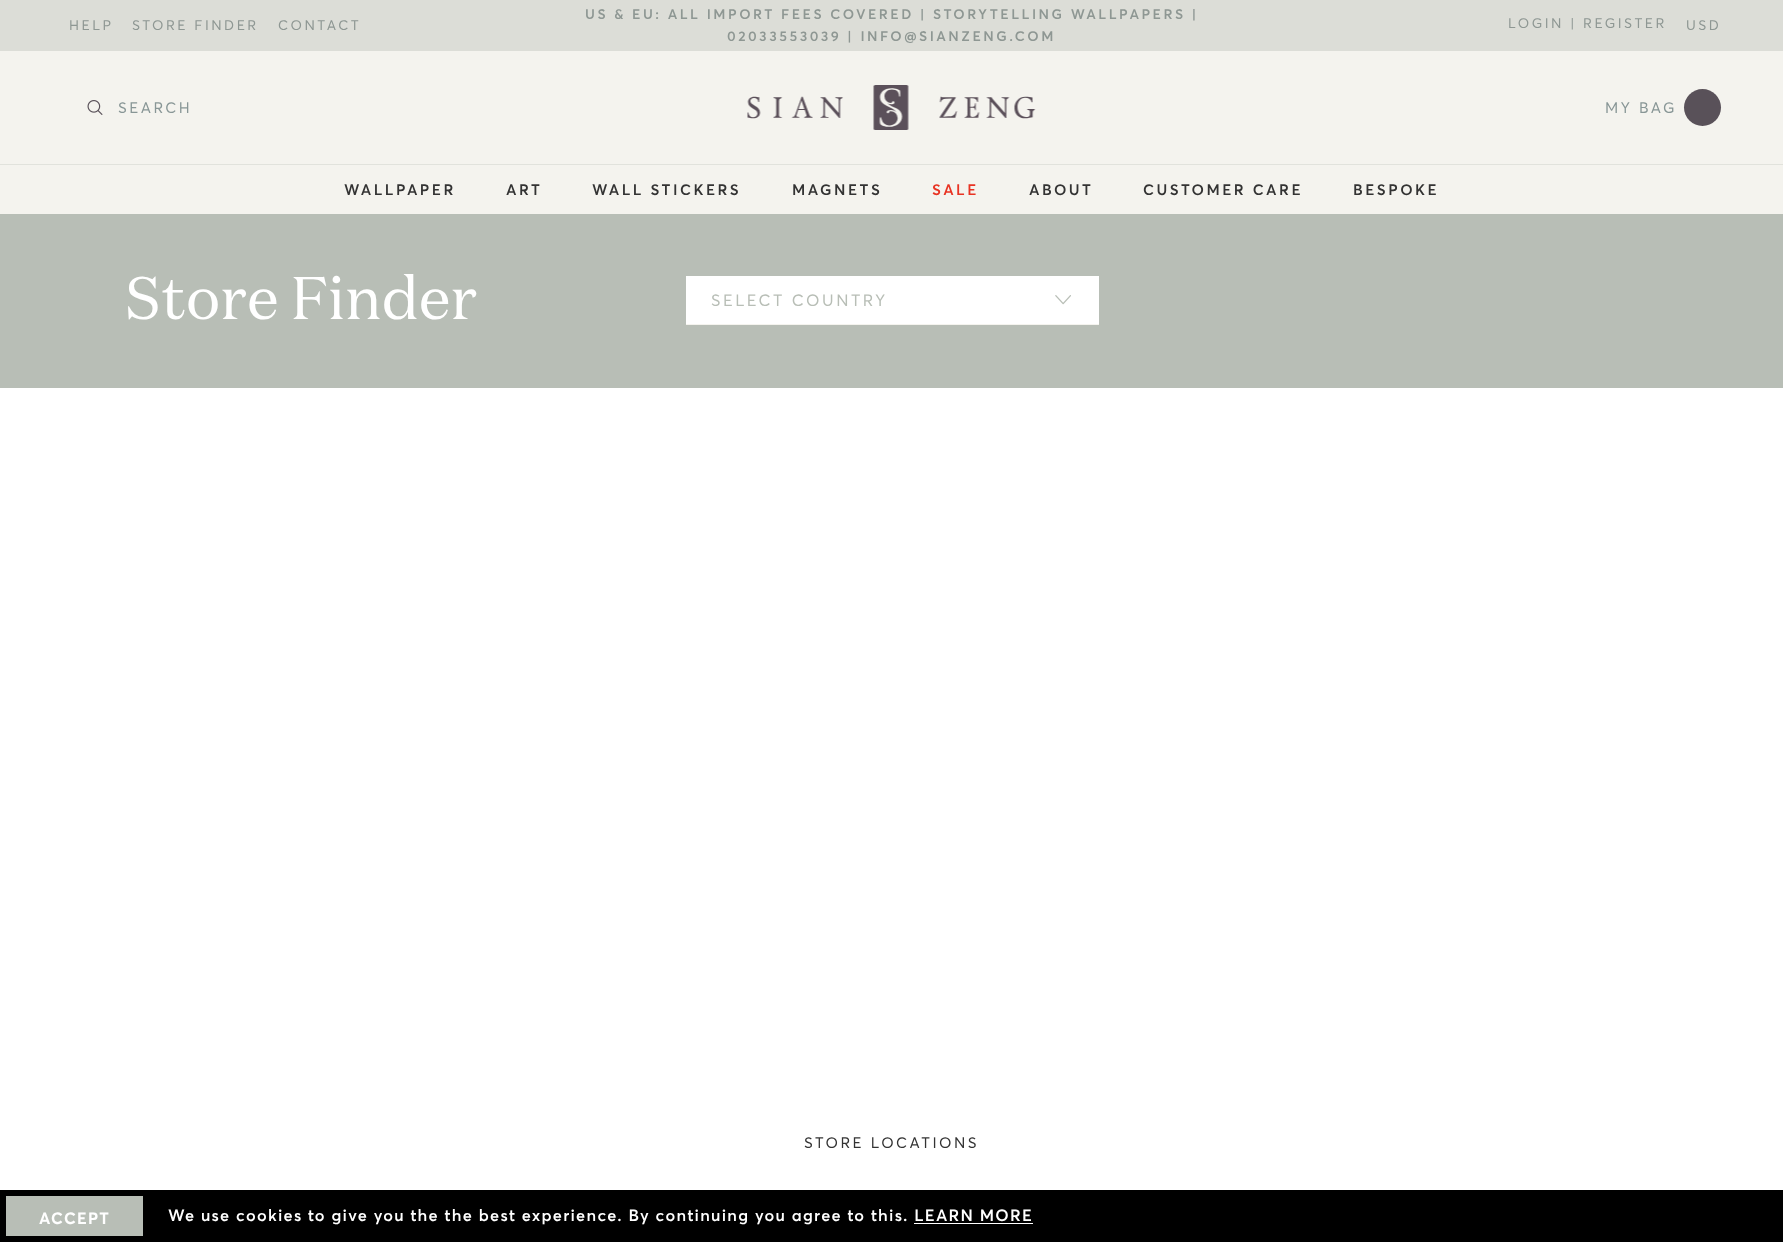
<svg xmlns="http://www.w3.org/2000/svg" width="1783" height="1242" viewBox="0 0 1783 1242">
  <rect width="100%" height="100%" fill="#ffffff"/>
  <rect x="0" y="51" width="1783" height="163" fill="#f4f3ee"/>
  <rect x="0" y="0" width="1783" height="51" fill="#dcddd7"/>
  <text x="69" y="30" font-family="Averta" font-size="13.75" letter-spacing="2.5" fill="#8e9793">HELP</text>
  <text x="132" y="30" font-family="Averta" font-size="13.75" letter-spacing="2.5" fill="#8e9793">STORE FINDER</text>
  <text x="278" y="30" font-family="Averta" font-size="13.75" letter-spacing="2.5" fill="#8e9793">CONTACT</text>
  <text x="585" y="19" font-family="Averta" font-size="13.75" font-weight="600" letter-spacing="2.5" fill="#8e9793">US &amp; EU: ALL IMPORT FEES COVERED | STORYTELLING WALLPAPERS |</text>
  <text x="727" y="41" font-family="Averta" font-size="13.75" font-weight="600" letter-spacing="2.5" fill="#8e9793">02033553039 | INFO@SIANZENG.COM</text>
  <text x="1508" y="28" font-family="Averta" font-size="13.75" letter-spacing="2.5" fill="#8e9793">LOGIN | REGISTER</text>
  <text x="1686" y="30" font-family="Averta" font-size="13.75" letter-spacing="2.5" fill="#8e9793">USD</text>
  <image x="87" y="100" width="16" height="15" href="img1.png"/>
  <text x="118" y="113" font-family="Averta" font-size="15" letter-spacing="2.5" fill="#889696">SEARCH</text>
  <image x="747" y="85" width="289" height="45" href="img2.png"/>
  <text x="1605" y="113" font-family="Averta" font-size="15" letter-spacing="2.5" fill="#889696">MY BAG</text>
  <circle cx="1702.5" cy="107.5" r="18.5" fill="#595159"/>
  <rect x="0" y="164" width="1783" height="1" fill="#e1e2dc"/>
  <text x="344" y="195" font-family="Averta" font-size="15" font-weight="600" letter-spacing="2.5" fill="#333333">WALLPAPER</text>
  <text x="506" y="195" font-family="Averta" font-size="15" font-weight="600" letter-spacing="2.5" fill="#333333">ART</text>
  <text x="592" y="195" font-family="Averta" font-size="15" font-weight="600" letter-spacing="2.5" fill="#333333">WALL STICKERS</text>
  <text x="792" y="195" font-family="Averta" font-size="15" font-weight="600" letter-spacing="2.5" fill="#333333">MAGNETS</text>
  <text x="932" y="195" font-family="Averta" font-size="15" font-weight="600" letter-spacing="2.5" fill="#e83323">SALE</text>
  <text x="1029" y="195" font-family="Averta" font-size="15" font-weight="600" letter-spacing="2.5" fill="#333333">ABOUT</text>
  <text x="1143" y="195" font-family="Averta" font-size="15" font-weight="600" letter-spacing="2.5" fill="#333333">CUSTOMER CARE</text>
  <text x="1353" y="195" font-family="Averta" font-size="15" font-weight="600" letter-spacing="2.5" fill="#333333">BESPOKE</text>
  <rect x="0" y="214" width="1783" height="174" fill="#b8beb6"/>
  <text x="125" y="319" font-family="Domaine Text" font-size="60" fill="#ffffff">Store Finder</text>
  <rect x="686" y="276" width="413" height="48" fill="#ffffff"/>
  <rect x="686" y="324" width="413" height="1" fill="#f4f3ee"/>
  <text x="711" y="306" font-family="Averta" font-size="16.25" letter-spacing="2.5" fill="#b8beb6">SELECT COUNTRY</text>
  <image x="1055" y="295" width="16" height="10" href="img3.png"/>
  <text x="804" y="1148" font-family="Averta" font-size="15" letter-spacing="2.5" fill="#333333">STORE LOCATIONS</text>
  <rect x="0" y="1190" width="1783" height="52" fill="#000000"/>
  <rect x="6" y="1196" width="137" height="40" fill="#b8beb6"/>
  <text x="39" y="1224" font-family="Averta" font-size="16.25" font-weight="bold" letter-spacing="1.25" fill="#ffffff">ACCEPT</text>
  <text x="168" y="1221" font-family="Averta" font-size="16.25" font-weight="600" letter-spacing="1.25" fill="#ffffff">We use cookies to give you the the best experience. By continuing you agree to this. LEARN MORE</text>
  <rect x="914" y="1223" width="119" height="1" fill="#ffffff"/>
</svg>
